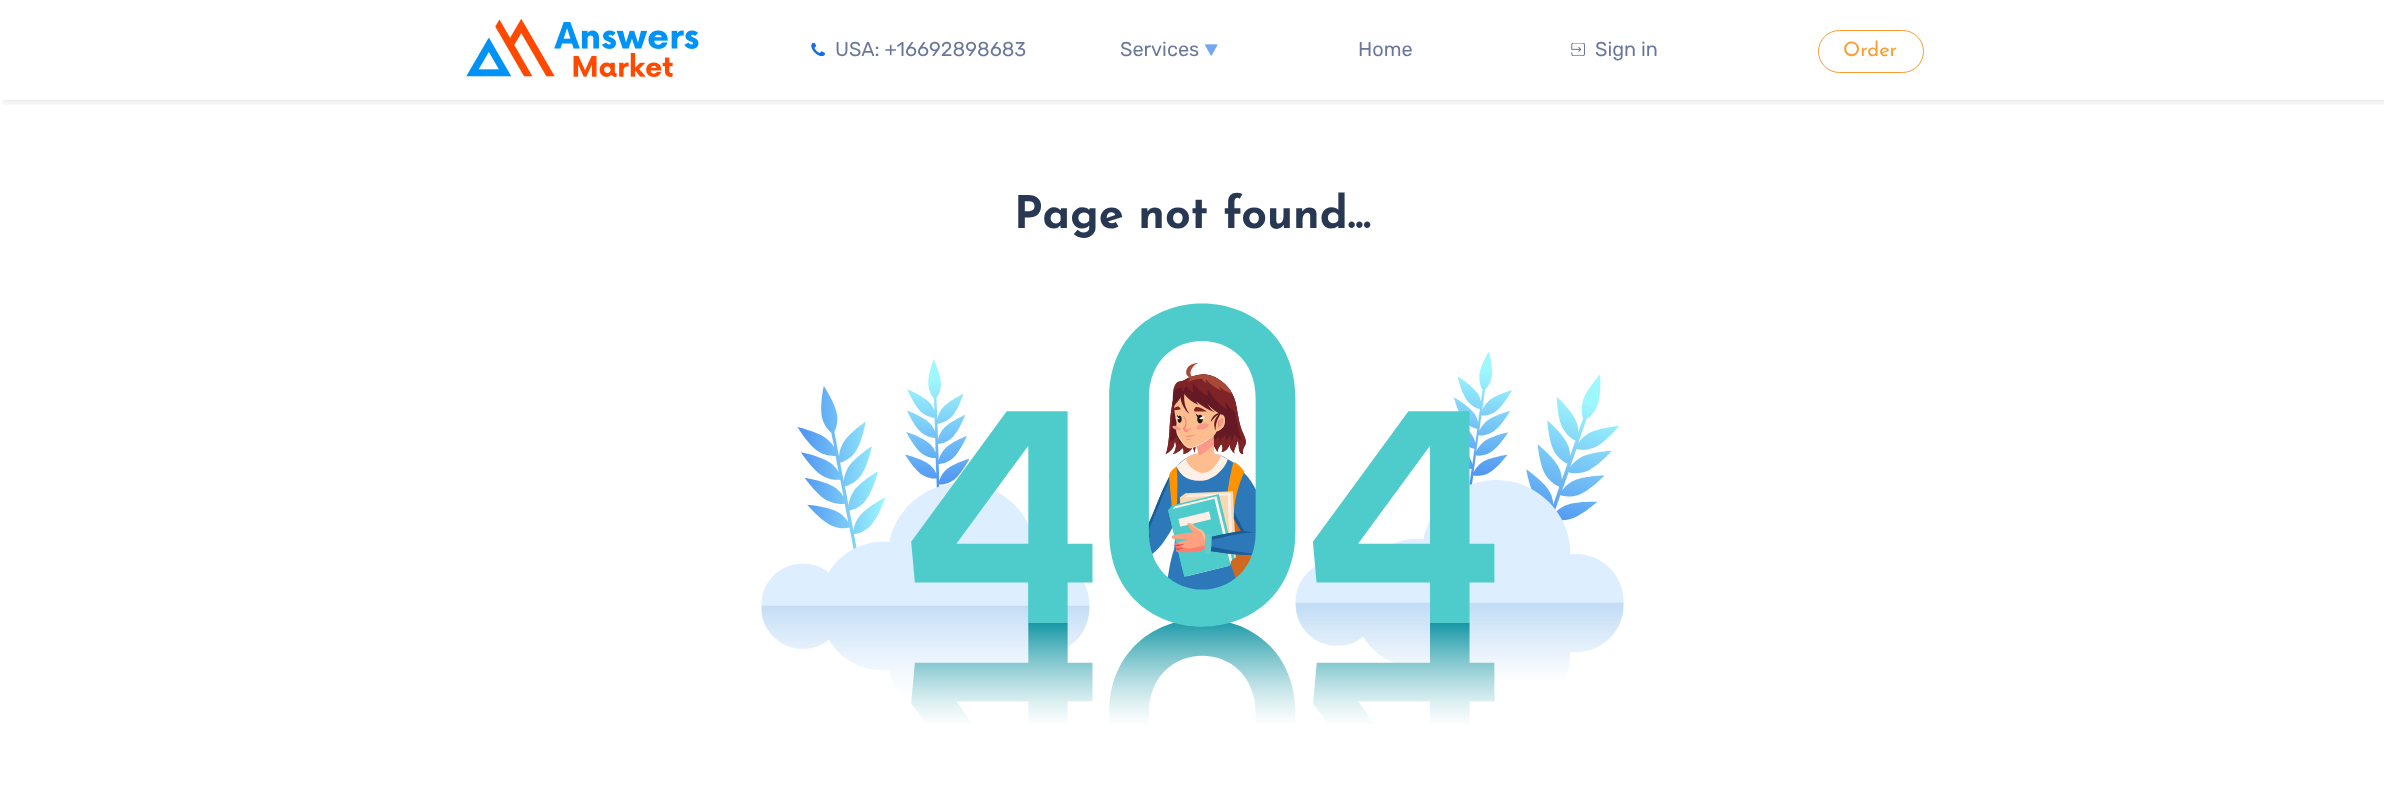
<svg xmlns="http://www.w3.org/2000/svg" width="2384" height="789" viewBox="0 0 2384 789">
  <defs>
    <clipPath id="clip1"><rect x="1" y="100" width="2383" height="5"/></clipPath>
    <filter id="blur1" x="-50%" y="-200%" width="200%" height="500%"><feGaussianBlur stdDeviation="2.5"/></filter>
  </defs>
  <rect width="100%" height="100%" fill="#ffffff"/>
  <g clip-path="url(#clip1)">
    <rect x="3" y="3" width="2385" height="100" fill="#293852" fill-opacity="0.1" filter="url(#blur1)"/>
  </g>
  <image x="466" y="19" width="233" height="58" href="img1.png"/>
  <image x="811" y="43" width="14" height="13" href="img2.png"/>
  <text x="835" y="56" font-family="Rubik" font-size="20" fill="#69779b">USA: +16692898683</text>
  <text x="1120" y="56" font-family="Rubik" font-size="20" fill="#69779b">Services</text>
  <image x="1205" y="44" width="13" height="12" href="img3.png"/>
  <text x="1358" y="56" font-family="Rubik" font-size="20" fill="#69779b">Home</text>
  <image x="1571" y="43" width="14" height="13" href="img4.png"/>
  <text x="1595" y="56" font-family="Rubik" font-size="20" fill="#69779b">Sign in</text>
  <rect x="1818.5" y="30.5" width="105" height="42" rx="21" fill="none" stroke="#f89c32"/>
  <text x="1843" y="56" font-family="Josefin Sans" font-size="20" fill="#f89e32">Order</text>
  <text x="1014" y="228" font-family="Josefin Sans" font-size="45" font-weight="bold" fill="#293852">Page not found...</text>
  <image x="761" y="303" width="863" height="421" href="img5.png"/>
</svg>
